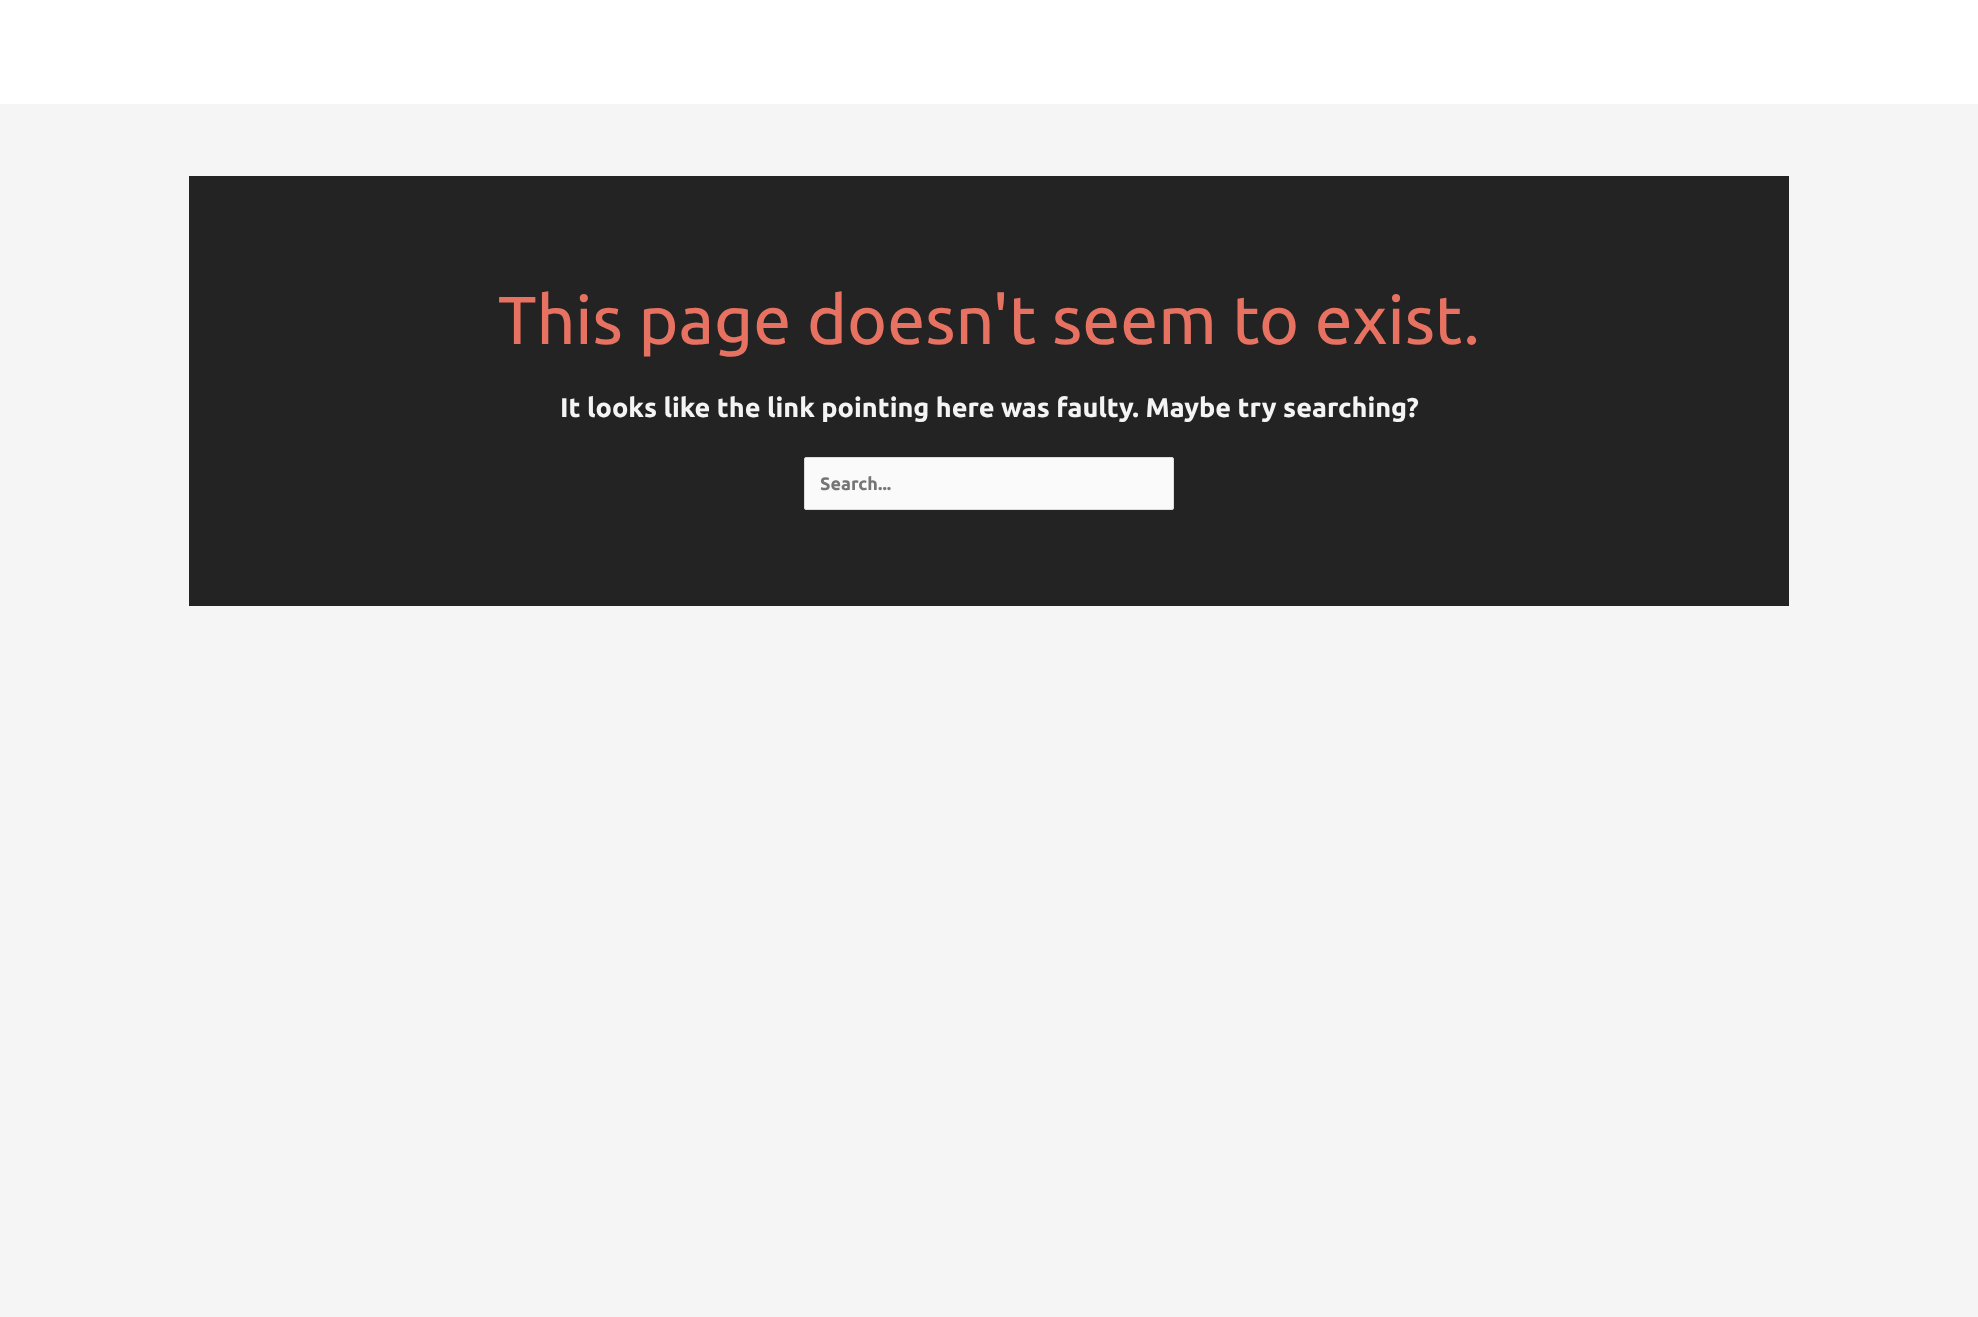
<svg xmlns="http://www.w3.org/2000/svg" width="1978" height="1317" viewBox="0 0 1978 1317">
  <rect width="100%" height="100%" fill="#f5f5f5"/>
  <rect x="0" y="0" width="1978" height="104" fill="#ffffff"/>
  <rect x="189" y="176" width="1600" height="430" fill="#232323"/>
  <text x="498" y="344" font-family="Ubuntu" font-size="68" fill="#e87262">This page doesn't seem to exist.</text>
  <text x="560" y="417" font-family="Ubuntu" font-size="27" font-weight="bold" fill="#f4f4f5">It looks like the link pointing here was faulty. Maybe try searching?</text>
  <rect x="804.5" y="457.5" width="369" height="52" rx="1.5" fill="#fafafa" stroke="#dddddd"/>
  <text x="820" y="490" font-family="Ubuntu" font-size="18" font-weight="bold" fill="#757575">Search...</text>
</svg>
